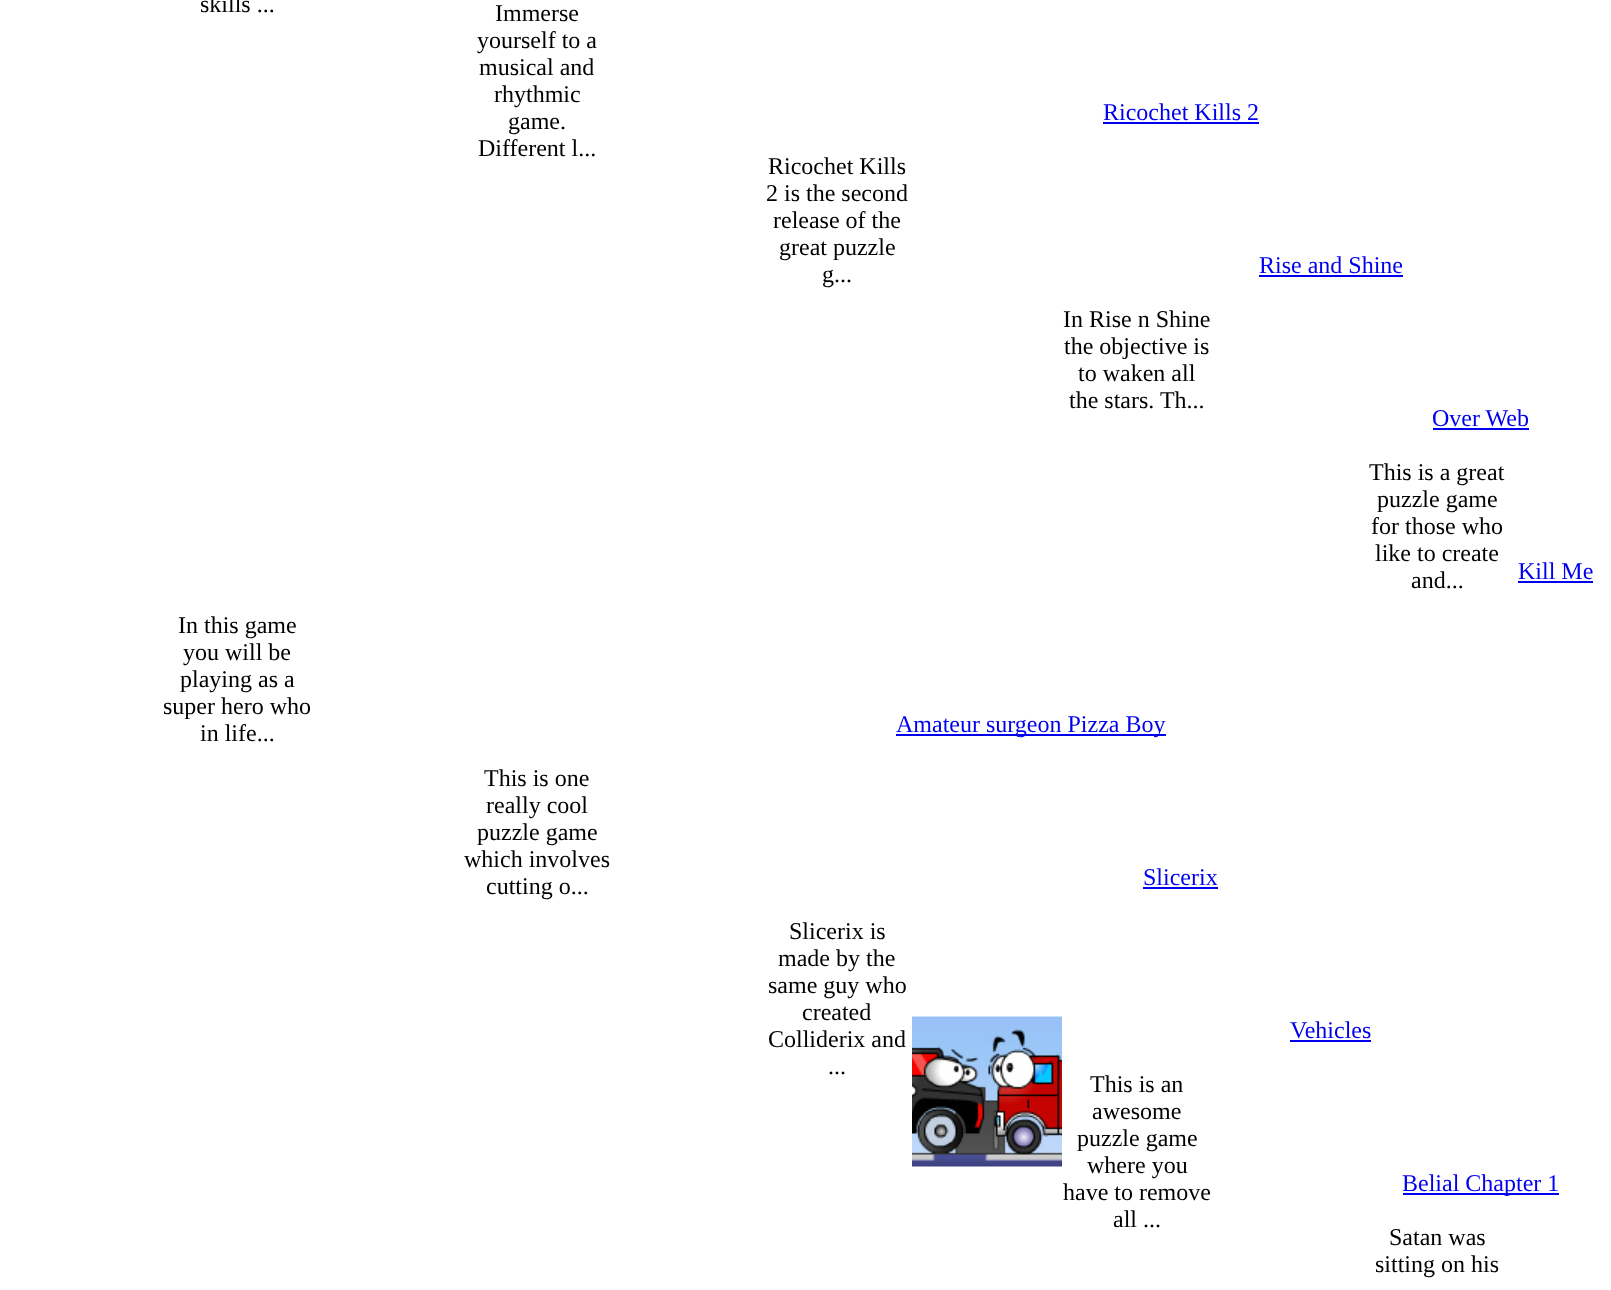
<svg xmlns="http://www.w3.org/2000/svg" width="1611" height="1290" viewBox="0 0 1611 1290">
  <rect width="100%" height="100%" fill="#ffffff"/>
  <text x="200" y="12" font-family="Liberation Serif" font-size="24" fill="#000000">skills ...</text>
  <text x="495" y="21" font-family="Liberation Serif" font-size="24" fill="#000000">Immerse</text>
  <text x="477" y="48" font-family="Liberation Serif" font-size="24" fill="#000000">yourself to a</text>
  <text x="479" y="75" font-family="Liberation Serif" font-size="24" fill="#000000">musical and</text>
  <text x="494" y="102" font-family="Liberation Serif" font-size="24" fill="#000000">rhythmic</text>
  <text x="508" y="129" font-family="Liberation Serif" font-size="24" fill="#000000">game.</text>
  <text x="478" y="156" font-family="Liberation Serif" font-size="24" fill="#000000">Different l...</text>
  <text x="1103" y="120" font-family="Liberation Serif" font-size="24" fill="#0000ee">Ricochet Kills 2</text>
  <rect x="1103" y="122" width="156" height="2" fill="#0000ee"/>
  <text x="768" y="174" font-family="Liberation Serif" font-size="24" fill="#000000">Ricochet Kills</text>
  <text x="766" y="201" font-family="Liberation Serif" font-size="24" fill="#000000">2 is the second</text>
  <text x="773" y="228" font-family="Liberation Serif" font-size="24" fill="#000000">release of the</text>
  <text x="779" y="255" font-family="Liberation Serif" font-size="24" fill="#000000">great puzzle</text>
  <text x="822" y="282" font-family="Liberation Serif" font-size="24" fill="#000000">g...</text>
  <text x="1259" y="273" font-family="Liberation Serif" font-size="24" fill="#0000ee">Rise and Shine</text>
  <rect x="1259" y="275" width="144" height="2" fill="#0000ee"/>
  <text x="1063" y="327" font-family="Liberation Serif" font-size="24" fill="#000000">In Rise n Shine</text>
  <text x="1064" y="354" font-family="Liberation Serif" font-size="24" fill="#000000">the objective is</text>
  <text x="1078" y="381" font-family="Liberation Serif" font-size="24" fill="#000000">to waken all</text>
  <text x="1069" y="408" font-family="Liberation Serif" font-size="24" fill="#000000">the stars. Th...</text>
  <text x="1432" y="426" font-family="Liberation Serif" font-size="24" fill="#0000ee">Over Web</text>
  <rect x="1433" y="428" width="96" height="2" fill="#0000ee"/>
  <text x="1369" y="480" font-family="Liberation Serif" font-size="24" fill="#000000">This is a great</text>
  <text x="1377" y="507" font-family="Liberation Serif" font-size="24" fill="#000000">puzzle game</text>
  <text x="1371" y="534" font-family="Liberation Serif" font-size="24" fill="#000000">for those who</text>
  <text x="1375" y="561" font-family="Liberation Serif" font-size="24" fill="#000000">like to create</text>
  <text x="1411" y="588" font-family="Liberation Serif" font-size="24" fill="#000000">and...</text>
  <text x="1518" y="579" font-family="Liberation Serif" font-size="24" fill="#0000ee">Kill Me</text>
  <rect x="1518" y="581" width="75" height="2" fill="#0000ee"/>
  <text x="178" y="633" font-family="Liberation Serif" font-size="24" fill="#000000">In this game</text>
  <text x="183" y="660" font-family="Liberation Serif" font-size="24" fill="#000000">you will be</text>
  <text x="180" y="687" font-family="Liberation Serif" font-size="24" fill="#000000">playing as a</text>
  <text x="163" y="714" font-family="Liberation Serif" font-size="24" fill="#000000">super hero who</text>
  <text x="200" y="741" font-family="Liberation Serif" font-size="24" fill="#000000">in life...</text>
  <rect x="896" y="734" width="270" height="2" fill="#0000ee"/>
  <text x="896" y="732" font-family="Liberation Serif" font-size="24" fill="#0000ee">Amateur surgeon Pizza Boy</text>
  <text x="484" y="786" font-family="Liberation Serif" font-size="24" fill="#000000">This is one</text>
  <text x="486" y="813" font-family="Liberation Serif" font-size="24" fill="#000000">really cool</text>
  <text x="477" y="840" font-family="Liberation Serif" font-size="24" fill="#000000">puzzle game</text>
  <text x="464" y="867" font-family="Liberation Serif" font-size="24" fill="#000000">which involves</text>
  <text x="486" y="894" font-family="Liberation Serif" font-size="24" fill="#000000">cutting o...</text>
  <text x="1143" y="885" font-family="Liberation Serif" font-size="24" fill="#0000ee">Slicerix</text>
  <rect x="1143" y="887" width="75" height="2" fill="#0000ee"/>
  <text x="789" y="939" font-family="Liberation Serif" font-size="24" fill="#000000">Slicerix is</text>
  <text x="778" y="966" font-family="Liberation Serif" font-size="24" fill="#000000">made by the</text>
  <text x="768" y="993" font-family="Liberation Serif" font-size="24" fill="#000000">same guy who</text>
  <text x="802" y="1020" font-family="Liberation Serif" font-size="24" fill="#000000">created</text>
  <text x="768" y="1047" font-family="Liberation Serif" font-size="24" fill="#000000">Colliderix and</text>
  <text x="828" y="1074" font-family="Liberation Serif" font-size="24" fill="#000000">...</text>
  <image x="912" y="1016" width="150" height="151" href="img1.png"/>
  <text x="1290" y="1038" font-family="Liberation Serif" font-size="24" fill="#0000ee">Vehicles</text>
  <rect x="1290" y="1040" width="81" height="2" fill="#0000ee"/>
  <text x="1090" y="1092" font-family="Liberation Serif" font-size="24" fill="#000000">This is an</text>
  <text x="1092" y="1119" font-family="Liberation Serif" font-size="24" fill="#000000">awesome</text>
  <text x="1077" y="1146" font-family="Liberation Serif" font-size="24" fill="#000000">puzzle game</text>
  <text x="1087" y="1173" font-family="Liberation Serif" font-size="24" fill="#000000">where you</text>
  <text x="1063" y="1200" font-family="Liberation Serif" font-size="24" fill="#000000">have to remove</text>
  <text x="1113" y="1227" font-family="Liberation Serif" font-size="24" fill="#000000">all ...</text>
  <rect x="1403" y="1193" width="156" height="2" fill="#0000ee"/>
  <text x="1402" y="1191" font-family="Liberation Serif" font-size="24" fill="#0000ee">Belial Chapter 1</text>
  <text x="1389" y="1245" font-family="Liberation Serif" font-size="24" fill="#000000">Satan was</text>
  <text x="1375" y="1272" font-family="Liberation Serif" font-size="24" fill="#000000">sitting on his</text>
</svg>
